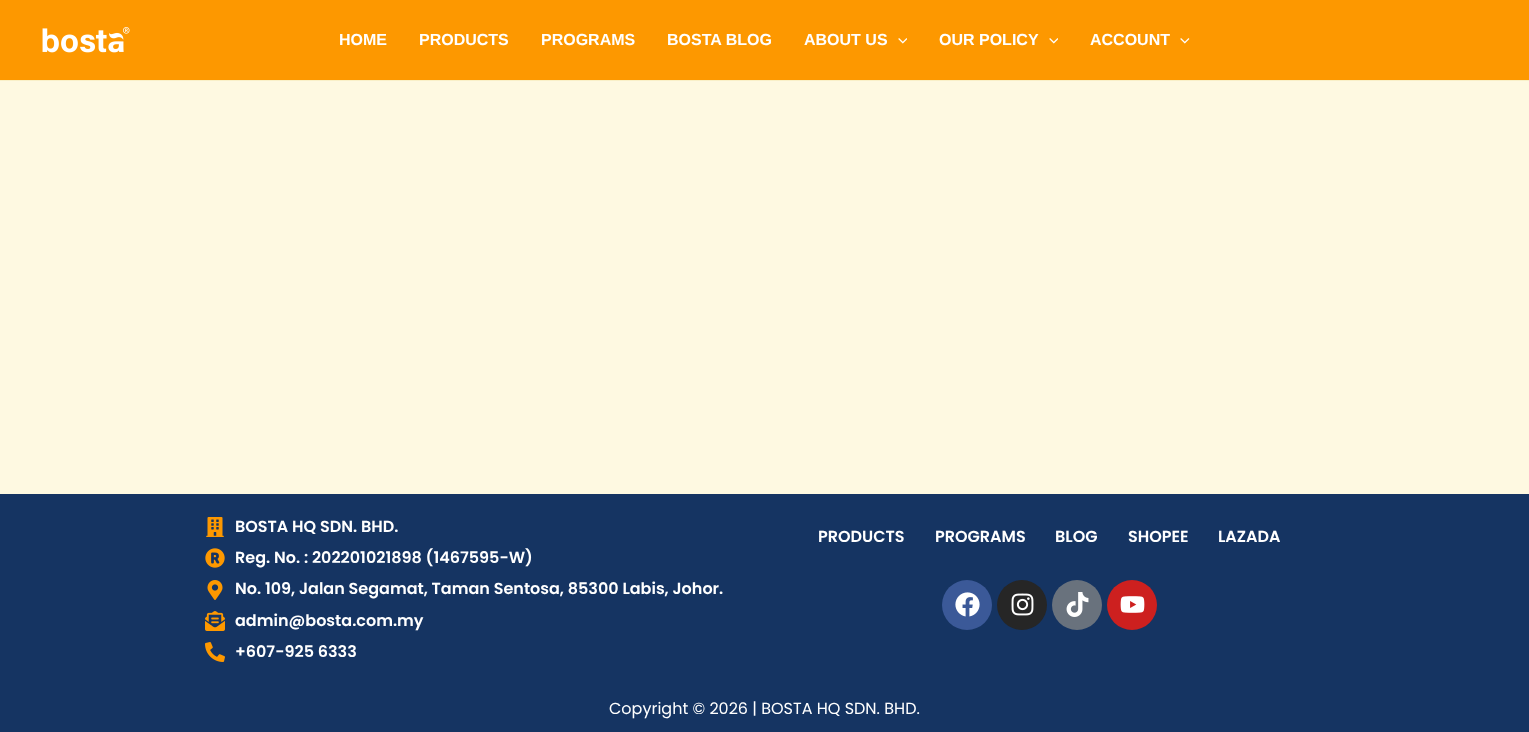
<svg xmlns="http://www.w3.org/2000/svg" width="1529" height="732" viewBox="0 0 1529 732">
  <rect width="100%" height="100%" fill="#fef9e1"/>
  <rect x="0" y="0" width="1529" height="80" fill="#fd9800"/>
  <rect x="0" y="80" width="1529" height="1" fill="#f9f0c8"/>
  <image x="42" y="27" width="88" height="26" href="img1.png"/>
  <text x="339" y="45" font-family="Liberation Sans" font-size="16" font-weight="bold" fill="#ffffff">HOME</text>
  <text x="419" y="45" font-family="Liberation Sans" font-size="16" font-weight="bold" fill="#ffffff">PRODUCTS</text>
  <text x="541" y="45" font-family="Liberation Sans" font-size="16" font-weight="bold" fill="#ffffff">PROGRAMS</text>
  <text x="667" y="45" font-family="Liberation Sans" font-size="16" font-weight="bold" fill="#ffffff">BOSTA BLOG</text>
  <text x="804" y="45" font-family="Liberation Sans" font-size="16" font-weight="bold" fill="#ffffff">ABOUT US</text>
  <image x="898" y="38" width="9" height="6" href="img2.png"/>
  <text x="939" y="45" font-family="Liberation Sans" font-size="16" font-weight="bold" fill="#ffffff">OUR POLICY</text>
  <image x="1049" y="38" width="9" height="6" href="img2.png"/>
  <text x="1090" y="45" font-family="Liberation Sans" font-size="16" font-weight="bold" fill="#ffffff">ACCOUNT</text>
  <image x="1180" y="38" width="10" height="6" href="img3.png"/>
  <rect x="0" y="494" width="1529" height="238" fill="#153462"/>
  <image x="206" y="517" width="18" height="20" href="img4.png"/>
  <text x="235" y="532" font-family="Poppins" font-size="16" font-weight="600" fill="#ffffff">BOSTA HQ SDN. BHD.</text>
  <image x="205" y="548" width="20" height="20" href="img5.png"/>
  <text x="235" y="563" font-family="Poppins" font-size="16" font-weight="600" fill="#ffffff">Reg. No. : 202201021898 (1467595-W)</text>
  <image x="207" y="580" width="16" height="20" href="img6.png"/>
  <text x="235" y="594" font-family="Poppins" font-size="16" font-weight="600" fill="#ffffff">No. 109, Jalan Segamat, Taman Sentosa, 85300 Labis, Johor.</text>
  <image x="205" y="611" width="20" height="20" href="img7.png"/>
  <text x="235" y="626" font-family="Poppins" font-size="16" font-weight="600" fill="#ffffff">admin@bosta.com.my</text>
  <image x="205" y="642" width="20" height="20" href="img8.png"/>
  <text x="235" y="657" font-family="Poppins" font-size="16" font-weight="600" fill="#ffffff">+607-925 6333</text>
  <text x="818" y="542" font-family="Poppins" font-size="16" font-weight="600" fill="#ffffff">PRODUCTS</text>
  <text x="935" y="542" font-family="Poppins" font-size="16" font-weight="600" fill="#ffffff">PROGRAMS</text>
  <text x="1055" y="542" font-family="Poppins" font-size="16" font-weight="600" fill="#ffffff">BLOG</text>
  <text x="1128" y="542" font-family="Poppins" font-size="16" font-weight="600" fill="#ffffff">SHOPEE</text>
  <text x="1218" y="542" font-family="Poppins" font-size="16" font-weight="600" fill="#ffffff">LAZADA</text>
  <circle cx="967" cy="605" r="25" fill="#3b5998"/>
  <image x="955" y="592" width="25" height="25" href="img9.png"/>
  <circle cx="1022" cy="605" r="25" fill="#262626"/>
  <image x="1011" y="593" width="23" height="23" href="img10.png"/>
  <circle cx="1077" cy="605" r="25" fill="#69727d"/>
  <image x="1066" y="592" width="23" height="25" href="img11.png"/>
  <circle cx="1132" cy="605" r="25" fill="#cd201f"/>
  <image x="1120" y="596" width="25" height="17" href="img12.png"/>
  <text x="609" y="714" font-family="Poppins" font-size="16" fill="#ffffff">Copyright © 2026 | BOSTA HQ SDN. BHD.</text>
</svg>
